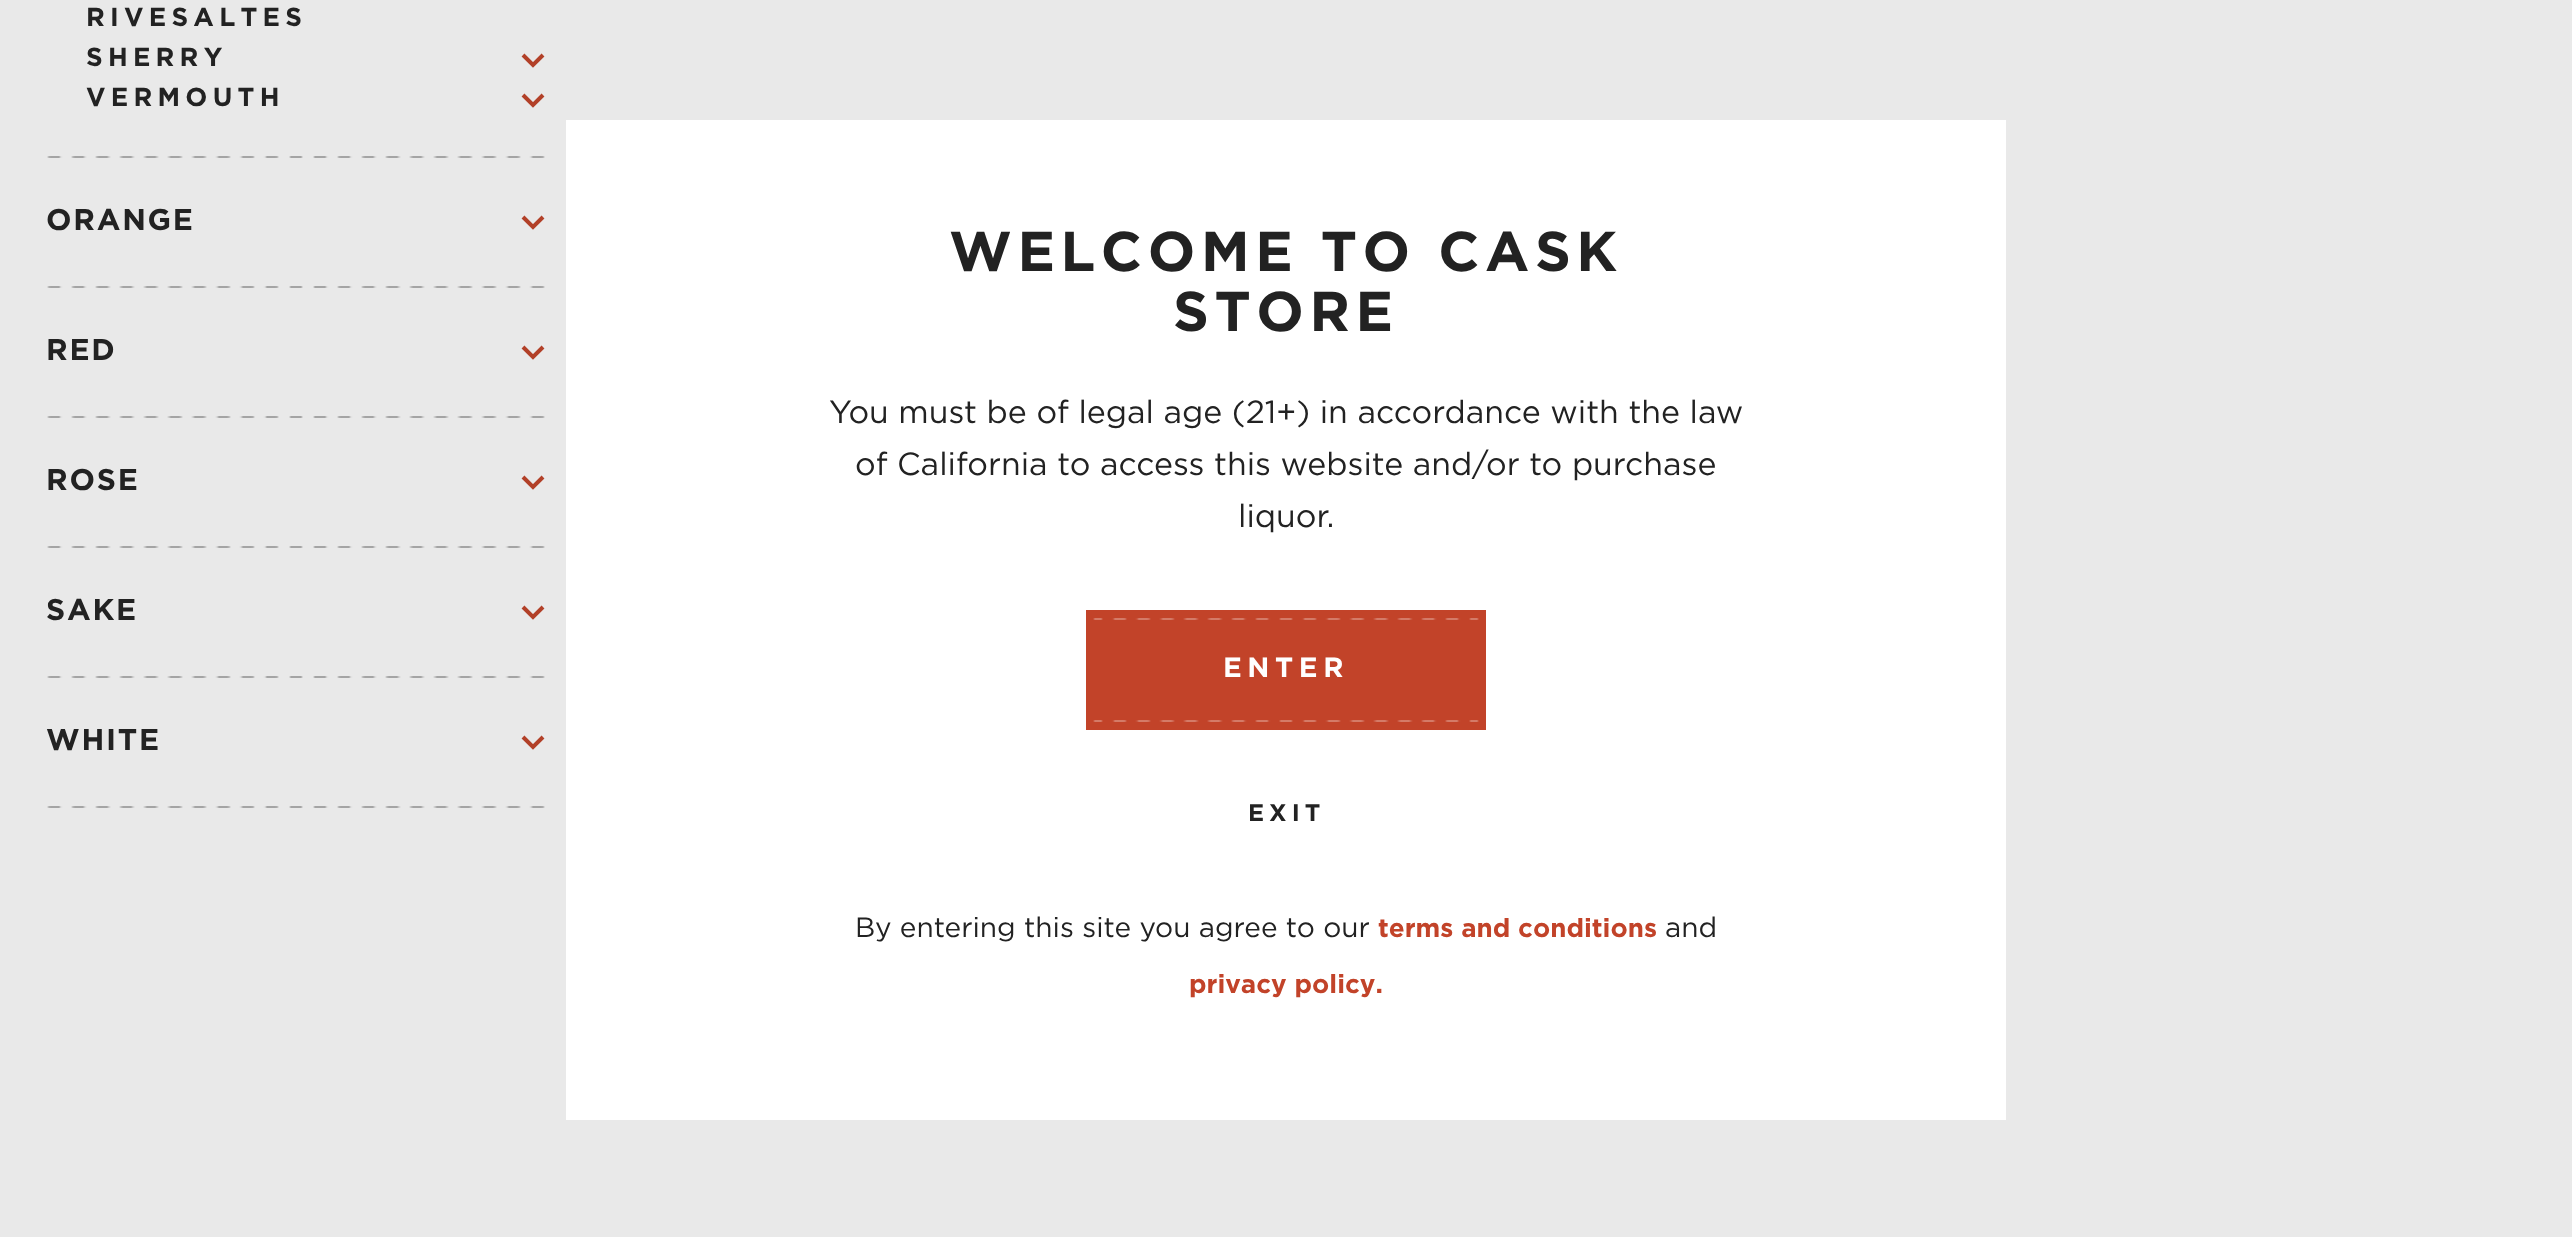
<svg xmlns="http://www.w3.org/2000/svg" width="2572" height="1237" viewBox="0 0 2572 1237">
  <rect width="100%" height="100%" fill="#e9e9e9"/>
  <image x="47" y="156" width="498" height="2" href="img1.png"/>
  <text x="86" y="26" font-family="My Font" font-size="26" font-weight="bold" letter-spacing="5.25" fill="#222222">RIVESALTES</text>
  <text x="86" y="66" font-family="My Font" font-size="26" font-weight="bold" letter-spacing="5.25" fill="#222222">SHERRY</text>
  <path d="M523 55L533 65L543 55" fill="none" stroke="#b24028" stroke-width="4"/>
  <text x="86" y="106" font-family="My Font" font-size="26" font-weight="bold" letter-spacing="5.25" fill="#222222">VERMOUTH</text>
  <path d="M523 95L533 105L543 95" fill="none" stroke="#b24028" stroke-width="4"/>
  <image x="47" y="286" width="498" height="2" href="img1.png"/>
  <text x="46" y="230" font-family="My Font" font-size="30" font-weight="bold" letter-spacing="1.75" fill="#222222">ORANGE</text>
  <path d="M523 217L533 227L543 217" fill="none" stroke="#b24028" stroke-width="4"/>
  <image x="47" y="416" width="498" height="2" href="img1.png"/>
  <text x="46" y="360" font-family="My Font" font-size="30" font-weight="bold" letter-spacing="1.75" fill="#222222">RED</text>
  <path d="M523 347L533 357L543 347" fill="none" stroke="#b24028" stroke-width="4"/>
  <image x="47" y="546" width="498" height="2" href="img1.png"/>
  <text x="46" y="490" font-family="My Font" font-size="30" font-weight="bold" letter-spacing="1.75" fill="#222222">ROSE</text>
  <path d="M523 477L533 487L543 477" fill="none" stroke="#b24028" stroke-width="4"/>
  <image x="47" y="676" width="498" height="2" href="img1.png"/>
  <text x="46" y="620" font-family="My Font" font-size="30" font-weight="bold" letter-spacing="1.75" fill="#222222">SAKE</text>
  <path d="M523 607L533 617L543 607" fill="none" stroke="#b24028" stroke-width="4"/>
  <image x="47" y="806" width="498" height="2" href="img1.png"/>
  <text x="46" y="750" font-family="My Font" font-size="30" font-weight="bold" letter-spacing="1.75" fill="#222222">WHITE</text>
  <path d="M523 737L533 747L543 737" fill="none" stroke="#b24028" stroke-width="4"/>
  <rect x="566" y="120" width="1440" height="1000" fill="#ffffff"/>
  <text x="949" y="271" font-family="My Font" font-size="56" font-weight="bold" letter-spacing="5.6" fill="#222222">WELCOME TO CASK</text>
  <text x="1173" y="331" font-family="My Font" font-size="56" font-weight="bold" letter-spacing="5.6" fill="#222222">STORE</text>
  <text x="829" y="423" font-family="Gotham" font-size="32" fill="#222222">You must be of legal age (21+) in accordance with the law</text>
  <text x="855" y="475" font-family="Gotham" font-size="32" fill="#222222">of California to access this website and/or to purchase</text>
  <text x="1238" y="527" font-family="Gotham" font-size="32" fill="#222222">liquor.</text>
  <rect x="1086" y="610" width="400" height="120" fill="#c24329"/>
  <image x="1093" y="618" width="386" height="104" href="img2.png"/>
  <text x="1223" y="677" font-family="My Font" font-size="28" font-weight="bold" letter-spacing="5.6" fill="#ffffff">ENTER</text>
  <text x="1248" y="821" font-family="My Font" font-size="24" font-weight="bold" letter-spacing="5" fill="#222222">EXIT</text>
  <text x="855" y="937" font-family="Gotham" font-size="28" fill="#222222">By entering this site you agree to our</text>
  <text x="1378" y="937" font-family="My Font" font-size="26" font-weight="bold" fill="#c24329">terms and conditions</text>
  <text x="1665" y="937" font-family="Gotham" font-size="28" fill="#222222">and</text>
  <text x="1189" y="993" font-family="My Font" font-size="26" font-weight="bold" fill="#c24329">privacy policy.</text>
</svg>
